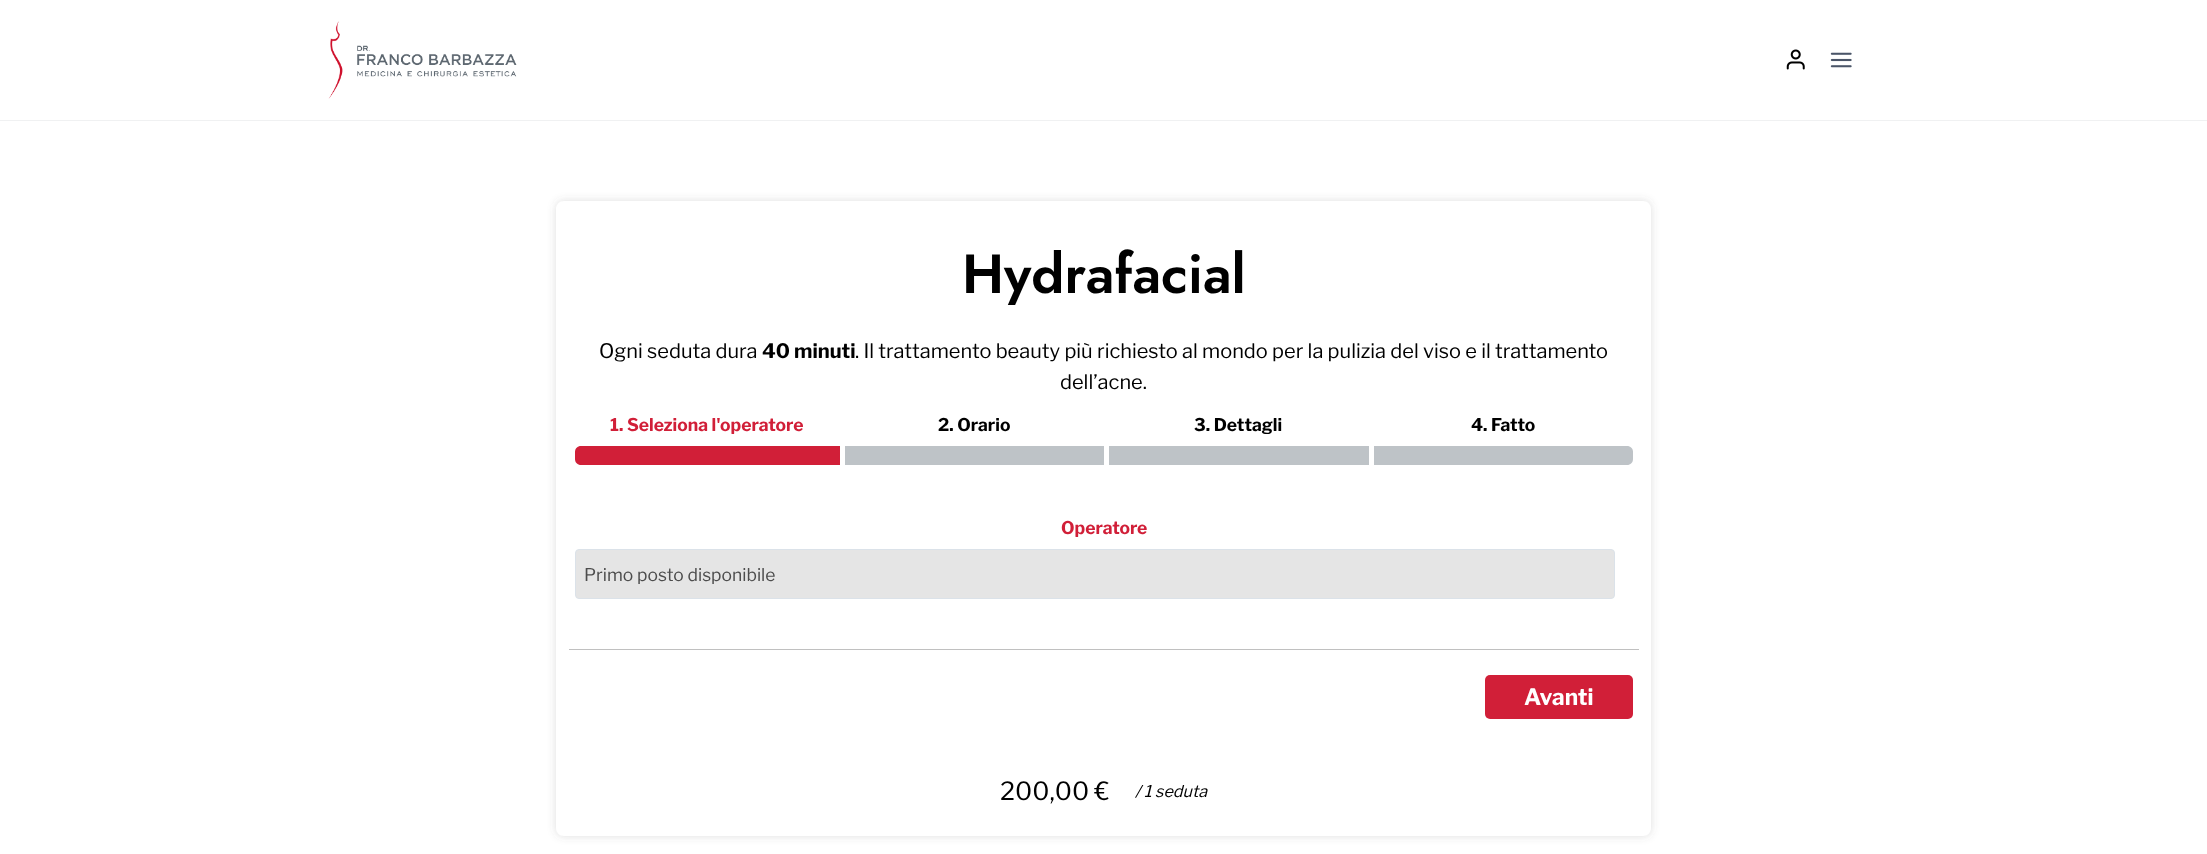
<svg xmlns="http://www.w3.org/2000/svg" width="2207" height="854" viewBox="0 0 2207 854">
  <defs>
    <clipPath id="clip1"><path d="M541 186H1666V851H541ZM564 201H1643C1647.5 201 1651 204.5 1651 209V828C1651 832.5 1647.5 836 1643 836H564C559.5 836 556 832.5 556 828V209C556 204.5 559.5 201 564 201Z" clip-rule="evenodd"/></clipPath>
    <filter id="blur1" x="-50%" y="-200%" width="200%" height="500%"><feGaussianBlur stdDeviation="4.5"/></filter>
  </defs>
  <rect width="100%" height="100%" fill="#ffffff"/>
  <rect x="0" y="120" width="2207" height="1" fill="#f0f1f2"/>
  <image x="328" y="21" width="189" height="78" href="img1.png"/>
  <image x="1786" y="49" width="19" height="21" href="img2.png"/>
  <image x="1830" y="52" width="22" height="16" href="img3.png"/>
  <g clip-path="url(#clip1)">
    <rect x="556" y="201" width="1095" height="635" rx="8" fill="#5c5c5c" fill-opacity="0.2" filter="url(#blur1)"/>
  </g>
  <text x="962" y="293" font-family="Jost" font-size="55" font-weight="600" fill="#000000">Hydrafacial</text>
  <text x="599" y="358" font-family="Libre Franklin" font-size="20" fill="#000000">Ogni seduta dura</text>
  <text x="762" y="358" font-family="Libre Franklin" font-size="20" font-weight="bold" fill="#000000">40 minuti</text>
  <text x="855" y="358" font-family="Libre Franklin" font-size="20" fill="#000000">. Il trattamento beauty più richiesto al mondo per la pulizia del viso e il trattamento</text>
  <text x="1060" y="389" font-family="Libre Franklin" font-size="20" fill="#000000">dell’acne.</text>
  <text x="610" y="431" font-family="Libre Franklin" font-size="17.5" font-weight="bold" fill="#d11f38">1. Seleziona l'operatore</text>
  <path d="M581 446H840V465H581C577.5 465 575 462.5 575 459V452C575 448.5 577.5 446 581 446Z" fill="#d11f38"/>
  <text x="938" y="431" font-family="Libre Franklin" font-size="17.5" font-weight="bold" fill="#000000">2. Orario</text>
  <rect x="845" y="446" width="259" height="19" fill="#bec3c7"/>
  <text x="1194" y="431" font-family="Libre Franklin" font-size="17.5" font-weight="bold" fill="#000000">3. Dettagli</text>
  <rect x="1109" y="446" width="260" height="19" fill="#bec3c7"/>
  <text x="1471" y="431" font-family="Libre Franklin" font-size="17.5" font-weight="bold" fill="#000000">4. Fatto</text>
  <path d="M1374 446H1627C1630.5 446 1633 448.5 1633 452V459C1633 462.5 1630.5 465 1627 465H1374Z" fill="#bec3c7"/>
  <text x="1061" y="534" font-family="Libre Franklin" font-size="17.5" font-weight="bold" fill="#d11f38">Operatore</text>
  <rect x="575.5" y="549.5" width="1039" height="49" rx="3.5" fill="#e5e5e5" stroke="#dbe2e9"/>
  <text x="584" y="581" font-family="Libre Franklin" font-size="17.5" fill="#4d4d4d">Primo posto disponibile</text>
  <rect x="569" y="649" width="1070" height="1" fill="#c0c0c0"/>
  <rect x="1485" y="675" width="148" height="44" rx="5" fill="#d11f38"/>
  <text x="1524" y="705" font-family="Libre Franklin" font-size="22.5" font-weight="bold" fill="#ffffff">Avanti</text>
  <text x="1000" y="800" font-family="Libre Franklin" font-size="25" fill="#000000">200,00 €</text>
  <text x="1135" y="797" font-family="Libre Franklin" font-size="16.25" font-style="italic" fill="#000000">/ 1 seduta</text>
</svg>
